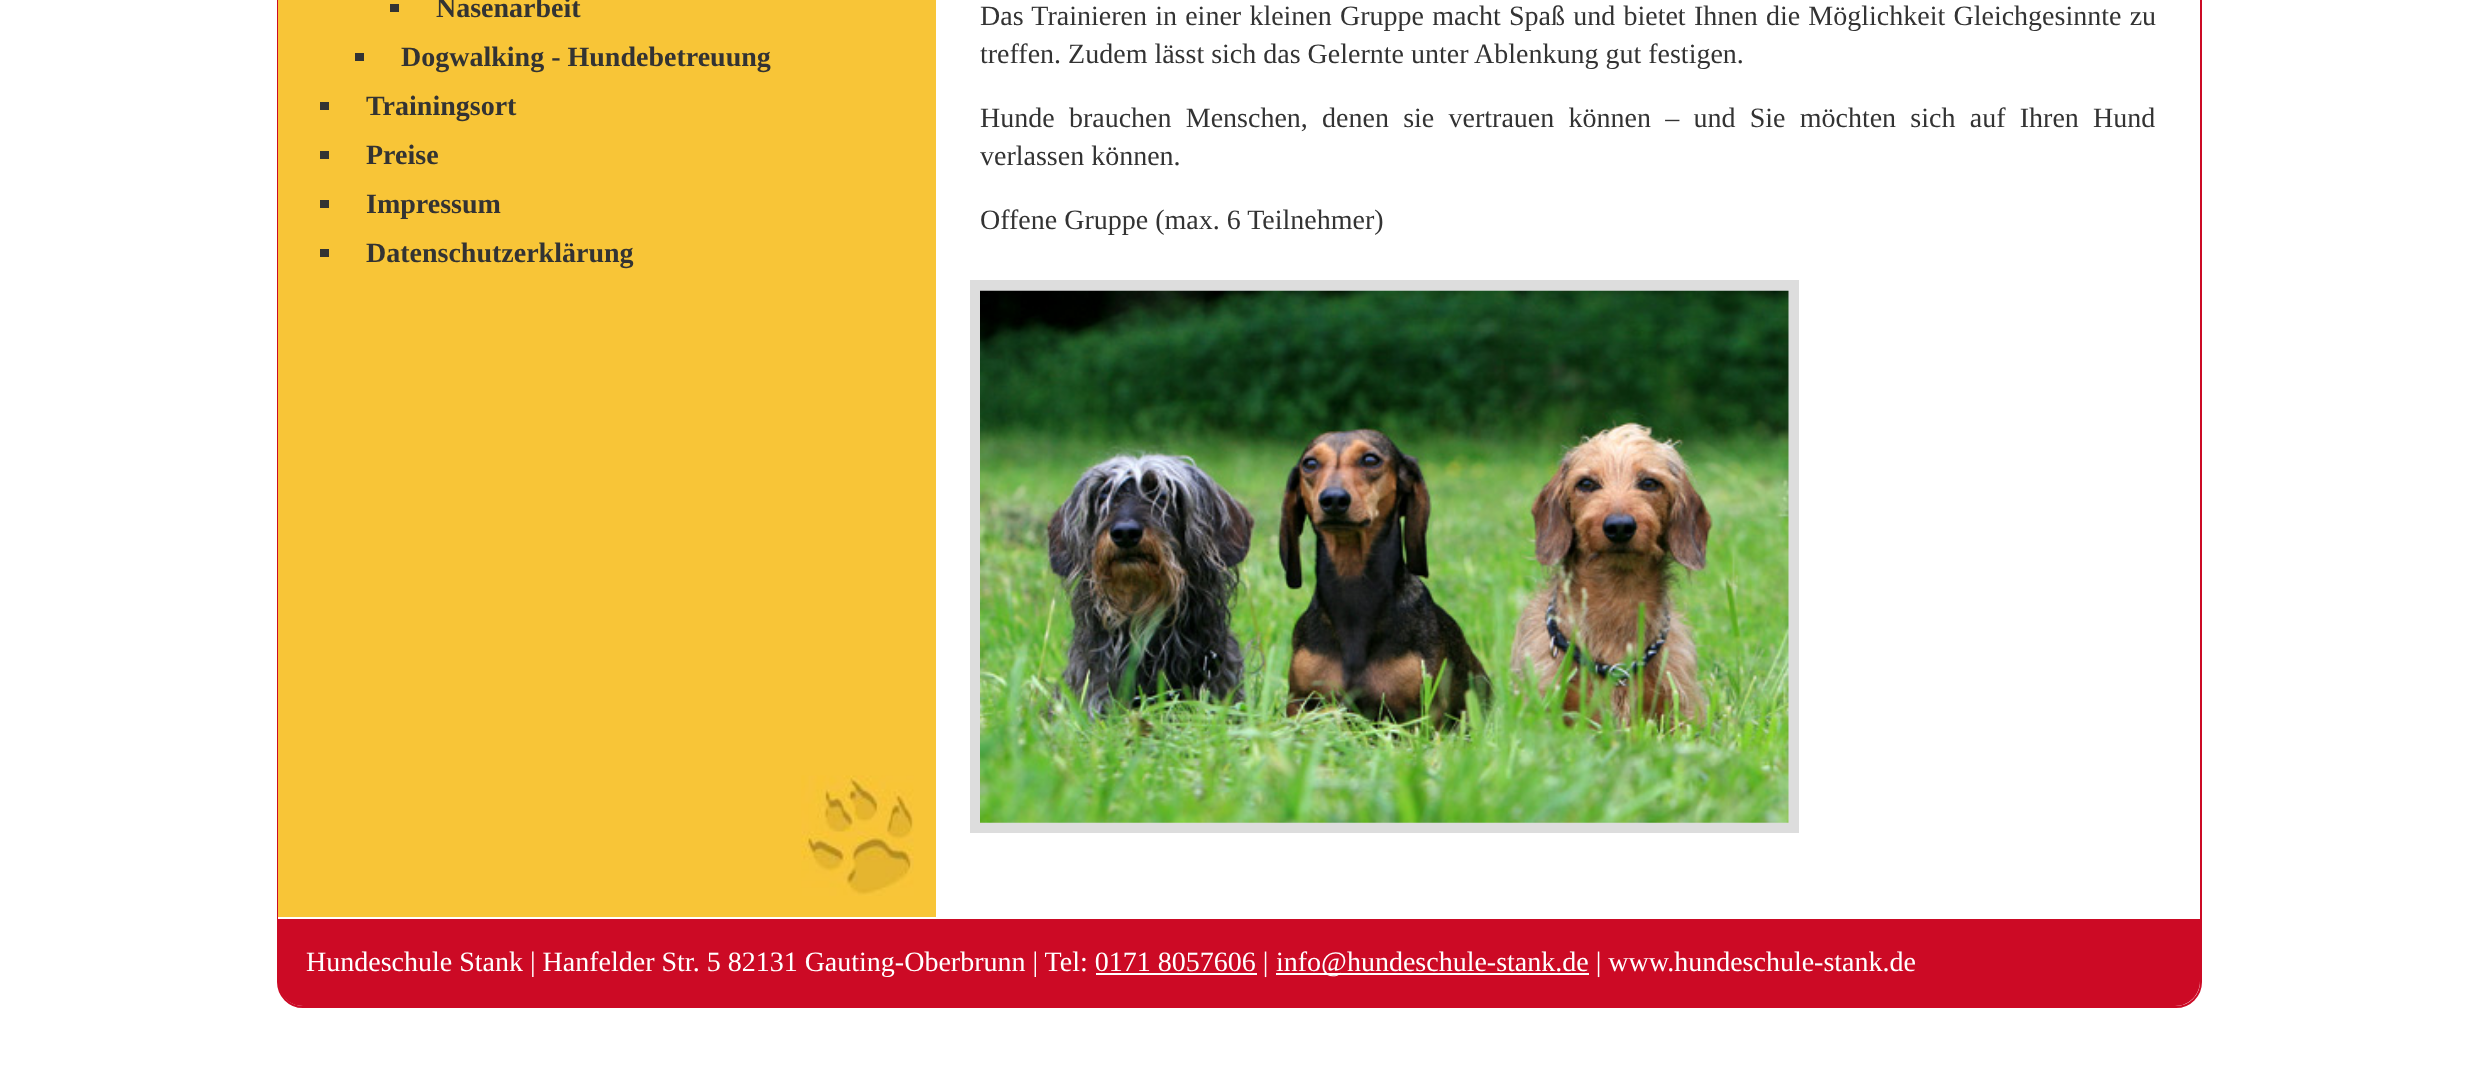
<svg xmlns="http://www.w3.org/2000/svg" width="2478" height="1080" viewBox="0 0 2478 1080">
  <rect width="100%" height="100%" fill="#ffffff"/>
  <rect x="278" y="-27" width="1923" height="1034" rx="25" fill="none" stroke="#cc0a25" stroke-width="2"/>
  <rect x="278" y="0" width="658" height="917" fill="#f8c537"/>
  <image x="801" y="775" width="113" height="121" href="img1.png"/>
  <rect x="390" y="4" width="9" height="8" fill="#333333"/>
  <text x="436" y="17" font-family="Liberation Serif" font-size="28" font-weight="bold" fill="#333333">Nasenarbeit</text>
  <rect x="355" y="53" width="9" height="8" fill="#333333"/>
  <text x="401" y="66" font-family="Liberation Serif" font-size="28" font-weight="bold" fill="#333333">Dogwalking - Hundebetreuung</text>
  <rect x="320" y="102" width="9" height="8" fill="#333333"/>
  <text x="366" y="115" font-family="Liberation Serif" font-size="28" font-weight="bold" fill="#333333">Trainingsort</text>
  <rect x="320" y="151" width="9" height="8" fill="#333333"/>
  <text x="366" y="164" font-family="Liberation Serif" font-size="28" font-weight="bold" fill="#333333">Preise</text>
  <rect x="320" y="200" width="9" height="8" fill="#333333"/>
  <text x="366" y="213" font-family="Liberation Serif" font-size="28" font-weight="bold" fill="#333333">Impressum</text>
  <rect x="320" y="249" width="9" height="8" fill="#333333"/>
  <text x="366" y="262" font-family="Liberation Serif" font-size="28" font-weight="bold" fill="#333333">Datenschutzerklärung</text>
  <text x="980" y="25" word-spacing="1.25" font-family="Liberation Serif" font-size="28" fill="#333333">Das Trainieren in einer kleinen Gruppe macht Spaß und bietet Ihnen die Möglichkeit Gleichgesinnte zu</text>
  <text x="980" y="63" font-family="Liberation Serif" font-size="28" fill="#333333">treffen. Zudem lässt sich das Gelernte unter Ablenkung gut festigen.</text>
  <text x="980" y="127" word-spacing="7.25" font-family="Liberation Serif" font-size="28" fill="#333333">Hunde brauchen Menschen, denen sie vertrauen können – und Sie möchten sich auf Ihren Hund</text>
  <text x="980" y="165" font-family="Liberation Serif" font-size="28" fill="#333333">verlassen können.</text>
  <text x="980" y="229" font-family="Liberation Serif" font-size="28" fill="#333333">Offene Gruppe (max. 6 Teilnehmer)</text>
  <rect x="975.5" y="285.5" width="818" height="542" fill="none" stroke="#dddddd" stroke-width="11"/>
  <image x="980" y="290" width="809" height="533" href="img2.png"/>
  <path d="M278 917H2200V981C2200 995 2189 1006 2175 1006H303C289 1006 278 995 278 981Z" fill="#cc0a25"/>
  <rect x="278" y="917" width="1922" height="2" fill="#ffffff"/>
  <text x="306" y="971" font-family="Liberation Serif" font-size="28" fill="#ffffff">Hundeschule Stank | Hanfelder Str. 5 82131 Gauting-Oberbrunn | Tel: 0171 8057606 |</text>
  <rect x="1276" y="973" width="313" height="2" fill="#ffffff"/>
  <text x="1276" y="971" font-family="Liberation Serif" font-size="28" fill="#ffffff">info@hundeschule-stank.de | www.hundeschule-stank.de</text>
  <rect x="1096" y="973" width="161" height="2" fill="#ffffff"/>
</svg>
